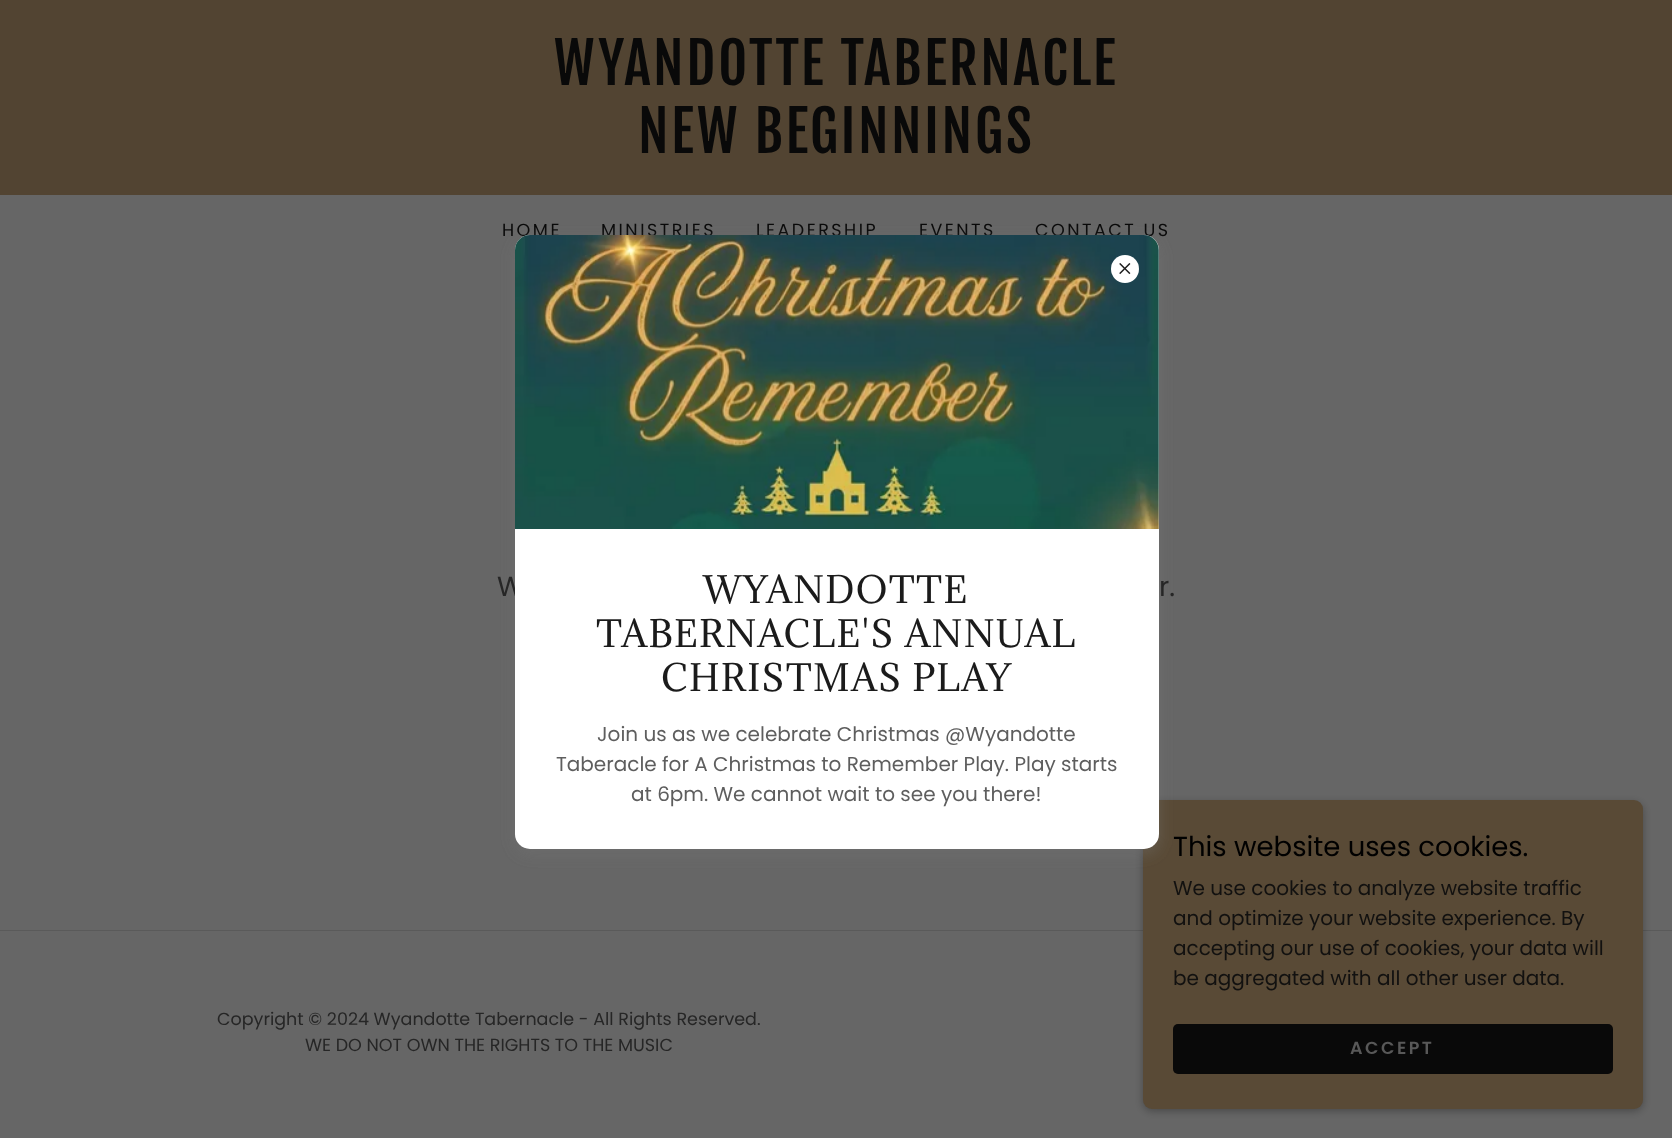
<svg xmlns="http://www.w3.org/2000/svg" width="1672" height="1138" viewBox="0 0 1672 1138">
  <defs>
    <filter id="blur1" x="-50%" y="-200%" width="200%" height="500%"><feGaussianBlur stdDeviation="4"/></filter>
    <filter id="blur2" x="-50%" y="-200%" width="200%" height="500%"><feGaussianBlur stdDeviation="7.5"/></filter>
  </defs>
  <rect width="100%" height="100%" fill="#666666"/>
  <rect x="0" y="0" width="1672" height="195" fill="#524432"/>
  <text x="554" y="85" font-family="Fjalla One" font-size="56.25" letter-spacing="2.5" fill="#090909">WYANDOTTE TABERNACLE</text>
  <text x="638" y="153" font-family="Fjalla One" font-size="56.25" letter-spacing="2.5" fill="#090909">NEW BEGINNINGS</text>
  <text x="502" y="236" font-family="Poppins" font-size="17.5" letter-spacing="2.5" fill="#090909">HOME</text>
  <text x="601" y="236" font-family="Poppins" font-size="17.5" letter-spacing="2.5" fill="#090909">MINISTRIES</text>
  <text x="756" y="236" font-family="Poppins" font-size="17.5" letter-spacing="2.5" fill="#090909">LEADERSHIP</text>
  <text x="919" y="236" font-family="Poppins" font-size="17.5" letter-spacing="2.5" fill="#090909">EVENTS</text>
  <text x="1035" y="236" font-family="Poppins" font-size="17.5" letter-spacing="2.5" fill="#090909">CONTACT US</text>
  <rect x="0" y="930" width="1672" height="1" fill="#5a5a5a"/>
  <rect x="1143" y="803" width="500" height="308" rx="9" fill="#000000" fill-opacity="0.3" filter="url(#blur1)"/>
  <rect x="1143" y="800" width="500" height="309" rx="9" fill="#594a36"/>
  <rect x="515" y="240" width="644" height="614" rx="15" fill="#757575" fill-opacity="0.4" filter="url(#blur2)"/>
  <text x="497" y="596" font-family="Poppins" font-size="27.5" fill="#262626">W</text>
  <rect x="515" y="235" width="644" height="614" rx="15" fill="#ffffff"/>
  <image x="515" y="235" width="644" height="294" href="img2.png"/>
  <circle cx="1125" cy="269" r="14" fill="#ffffff"/>
  <image x="1119" y="263" width="12" height="12" href="img1.png"/>
  <text x="703" y="603" font-family="Adamina" font-size="35" letter-spacing="1.25" fill="#1b1b1b">WYANDOTTE</text>
  <text x="596" y="647" font-family="Adamina" font-size="35" letter-spacing="1.25" fill="#1b1b1b">TABERNACLE'S ANNUAL</text>
  <text x="661" y="691" font-family="Adamina" font-size="35" letter-spacing="1.25" fill="#1b1b1b">CHRISTMAS PLAY</text>
  <text x="597" y="741" font-family="Poppins" font-size="20" fill="#5e5e5e">Join us as we celebrate Christmas @Wyandotte</text>
  <text x="556" y="771" font-family="Poppins" font-size="20" fill="#5e5e5e">Taberacle for A Christmas to Remember Play. Play starts</text>
  <text x="631" y="801" font-family="Poppins" font-size="20" fill="#5e5e5e">at 6pm. We cannot wait to see you there!</text>
  <text x="1159" y="596" font-family="Poppins" font-size="27.5" fill="#262626">r.</text>
  <text x="217" y="1025" font-family="Poppins" font-size="17.5" fill="#262626">Copyright © 2024 Wyandotte Tabernacle - All Rights Reserved.</text>
  <text x="305" y="1051" font-family="Poppins" font-size="17.5" fill="#262626">WE DO NOT OWN THE RIGHTS TO THE MUSIC</text>
  <text x="1173" y="856" font-family="Poppins" font-size="27.5" fill="#000000">This website uses cookies.</text>
  <text x="1173" y="895" font-family="Poppins" font-size="20" fill="#121110">We use cookies to analyze website traffic</text>
  <text x="1173" y="925" font-family="Poppins" font-size="20" fill="#121110">and optimize your website experience. By</text>
  <text x="1173" y="955" font-family="Poppins" font-size="20" fill="#121110">accepting our use of cookies, your data will</text>
  <text x="1173" y="985" font-family="Poppins" font-size="20" fill="#121110">be aggregated with all other user data.</text>
  <rect x="1173" y="1024" width="440" height="50" rx="5" fill="#090909"/>
  <text x="1350" y="1054" font-family="Poppins" font-size="17.5" font-weight="600" letter-spacing="2.5" fill="#585858">ACCEPT</text>
</svg>
